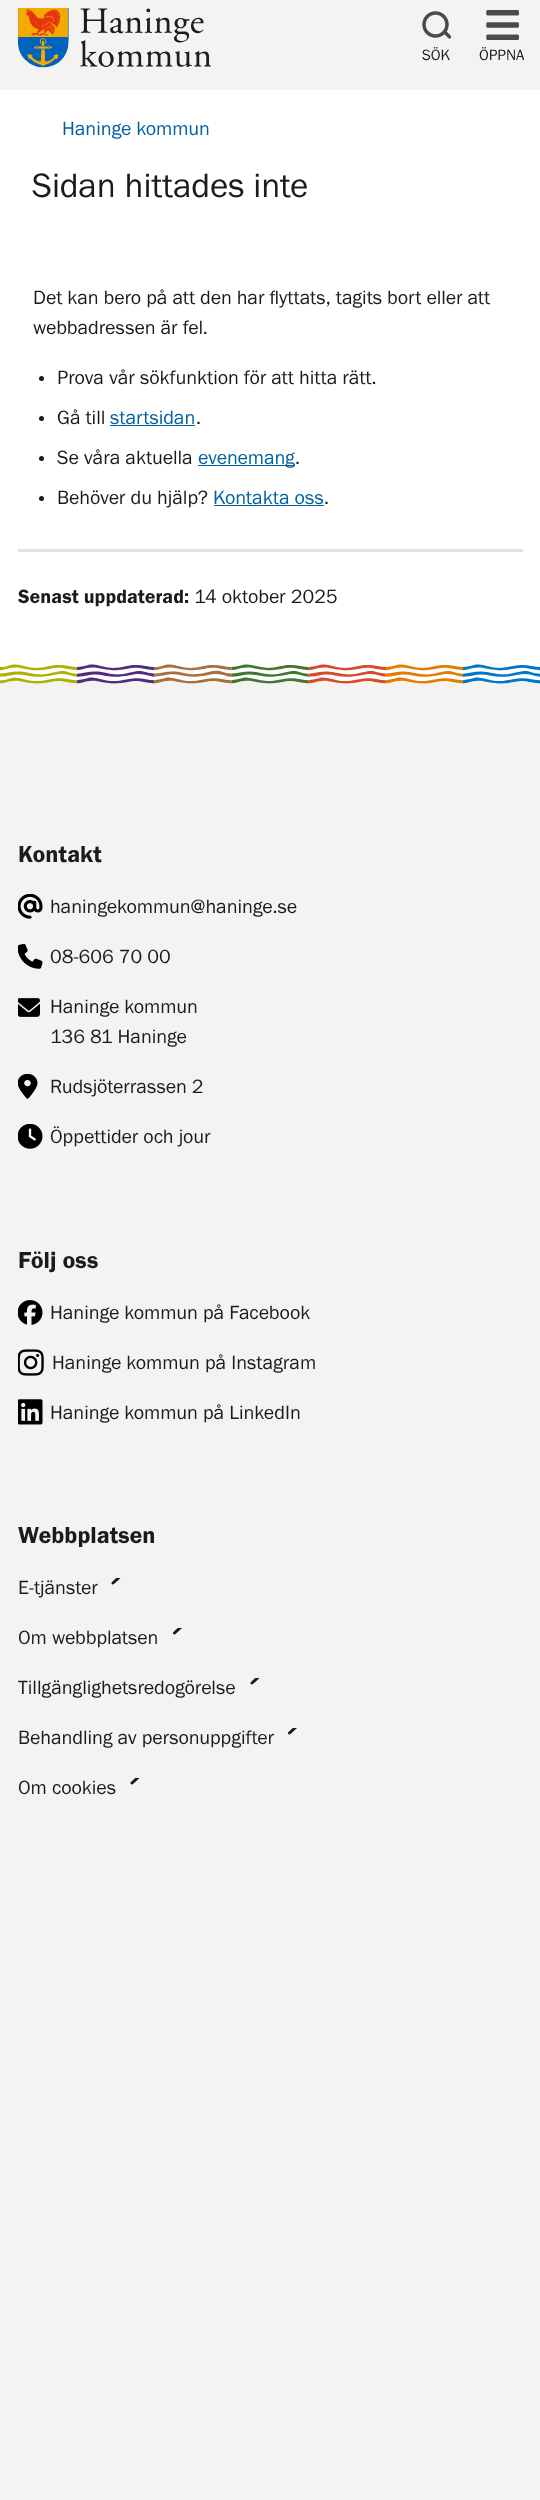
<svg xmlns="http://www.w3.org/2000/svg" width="540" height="2500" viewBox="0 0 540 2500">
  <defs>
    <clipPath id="clip1"><rect x="111" y="1578" width="10" height="7"/></clipPath>
    <clipPath id="clip2"><rect x="173" y="1628" width="10" height="7"/></clipPath>
    <clipPath id="clip3"><rect x="250" y="1678" width="10" height="7"/></clipPath>
    <clipPath id="clip4"><rect x="288" y="1728" width="10" height="7"/></clipPath>
    <clipPath id="clip5"><rect x="130" y="1778" width="10" height="7"/></clipPath>
  </defs>
  <rect width="100%" height="100%" fill="#f4f3f1"/>
  <image x="18" y="8" width="193" height="60" href="img1.png"/>
  <image x="422" y="11" width="29" height="28" href="img2.png"/>
  <text x="422" y="60" font-family="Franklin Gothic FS" font-size="15.5" fill="#1b1b1d">SÖK</text>
  <image x="486" y="10" width="33" height="30" href="img3.png"/>
  <text x="479" y="60" font-family="Franklin Gothic FS" font-size="15.5" fill="#1b1b1d">ÖPPNA</text>
  <rect x="0" y="90" width="540" height="574" fill="#ffffff"/>
  <text x="62" y="135" font-family="Franklin Gothic FS" font-size="20" fill="#0361a0">Haninge kommun</text>
  <text x="32" y="197" font-family="Franklin Gothic FS" font-size="35" fill="#1b1b1d">Sidan hittades inte</text>
  <text x="33" y="304" font-family="Franklin Gothic FS" font-size="20" fill="#1b1b1d">Det kan bero på att den har flyttats, tagits bort eller att</text>
  <text x="33" y="334" font-family="Franklin Gothic FS" font-size="20" fill="#1b1b1d">webbadressen är fel.</text>
  <circle cx="41.5" cy="378.5" r="2.5" fill="#1b1b1d"/>
  <text x="57" y="384" font-family="Franklin Gothic FS" font-size="20" fill="#1b1b1d">Prova vår sökfunktion för att hitta rätt.</text>
  <circle cx="41.5" cy="418.5" r="2.5" fill="#1b1b1d"/>
  <text x="57" y="424" font-family="Franklin Gothic FS" font-size="20" fill="#1b1b1d">Gå till</text>
  <text x="110" y="424" font-family="Franklin Gothic FS" font-size="20" fill="#0361a0">startsidan</text>
  <rect x="110" y="425" width="85" height="1" fill="#0361a0"/>
  <text x="196" y="424" font-family="Franklin Gothic FS" font-size="20" fill="#1b1b1d">.</text>
  <circle cx="41.5" cy="458.5" r="2.5" fill="#1b1b1d"/>
  <text x="57" y="464" font-family="Franklin Gothic FS" font-size="20" fill="#1b1b1d">Se våra aktuella</text>
  <rect x="198" y="465" width="97" height="1" fill="#0361a0"/>
  <text x="198" y="464" font-family="Franklin Gothic FS" font-size="20" fill="#0361a0">evenemang</text>
  <text x="295" y="464" font-family="Franklin Gothic FS" font-size="20" fill="#1b1b1d">.</text>
  <circle cx="41.5" cy="498.5" r="2.5" fill="#1b1b1d"/>
  <text x="57" y="504" font-family="Franklin Gothic FS" font-size="20" fill="#1b1b1d">Behöver du hjälp?</text>
  <text x="213" y="504" font-family="Franklin Gothic FS" font-size="20" fill="#0361a0">Kontakta oss</text>
  <rect x="214" y="505" width="110" height="1" fill="#0361a0"/>
  <text x="324" y="504" font-family="Franklin Gothic FS" font-size="20" fill="#1b1b1d">.</text>
  <rect x="18" y="549" width="505" height="3" fill="#e6e1d9"/>
  <text x="18" y="603" font-family="Franklin Gothic FS" font-size="20" font-weight="600" fill="#1b1b1d">Senast uppdaterad:</text>
  <text x="194" y="603" font-family="Franklin Gothic FS" font-size="20" fill="#1b1b1d">14 oktober 2025</text>
  <image x="0" y="664" width="540" height="20" href="img4.png"/>
  <text x="18" y="862" font-family="Franklin Gothic FS" font-size="24" font-weight="600" fill="#1b1b1d">Kontakt</text>
  <image x="18" y="894" width="25" height="25" href="img5.png"/>
  <text x="50" y="913" font-family="Franklin Gothic FS" font-size="20" fill="#1b1b1d">haningekommun@haninge.se</text>
  <image x="18" y="944" width="25" height="25" href="img6.png"/>
  <text x="50" y="963" font-family="Franklin Gothic FS" font-size="20" fill="#1b1b1d">08-606 70 00</text>
  <image x="18" y="998" width="22" height="19" href="img7.png"/>
  <text x="50" y="1013" font-family="Franklin Gothic FS" font-size="20" fill="#1b1b1d">Haninge kommun</text>
  <text x="50" y="1043" font-family="Franklin Gothic FS" font-size="20" fill="#1b1b1d">136 81 Haninge</text>
  <image x="18" y="1074" width="20" height="25" href="img8.png"/>
  <text x="50" y="1093" font-family="Franklin Gothic FS" font-size="20" fill="#1b1b1d">Rudsjöterrassen 2</text>
  <image x="18" y="1124" width="25" height="25" href="img9.png"/>
  <text x="50" y="1143" font-family="Franklin Gothic FS" font-size="20" fill="#1b1b1d">Öppettider och jour</text>
  <text x="18" y="1268" font-family="Franklin Gothic FS" font-size="24" font-weight="600" fill="#1b1b1d">Följ oss</text>
  <image x="18" y="1300" width="25" height="25" href="img10.png"/>
  <text x="50" y="1319" font-family="Franklin Gothic FS" font-size="20" fill="#1b1b1d">Haninge kommun på Facebook</text>
  <image x="18" y="1349" width="26" height="27" href="img11.png"/>
  <text x="52" y="1369" font-family="Franklin Gothic FS" font-size="20" fill="#1b1b1d">Haninge kommun på Instagram</text>
  <image x="18" y="1399" width="25" height="26" href="img12.png"/>
  <text x="50" y="1419" font-family="Franklin Gothic FS" font-size="20" fill="#1b1b1d">Haninge kommun på LinkedIn</text>
  <text x="18" y="1543" font-family="Franklin Gothic FS" font-size="24" font-weight="600" fill="#1b1b1d">Webbplatsen</text>
  <text x="18" y="1594" font-family="Franklin Gothic FS" font-size="20" fill="#1b1b1d">E-tjänster</text>
  <g clip-path="url(#clip1)">
    <path d="M113.5 1572L119 1577.5L113 1583" fill="none" stroke="#1b1b1d" stroke-width="3" stroke-linecap="round" stroke-linejoin="round"/>
  </g>
  <text x="18" y="1644" font-family="Franklin Gothic FS" font-size="20" fill="#1b1b1d">Om webbplatsen</text>
  <g clip-path="url(#clip2)">
    <path d="M174.5 1622L180.5 1627.5L174.5 1633" fill="none" stroke="#1b1b1d" stroke-width="3" stroke-linecap="round" stroke-linejoin="round"/>
  </g>
  <text x="18" y="1694" font-family="Franklin Gothic FS" font-size="20" fill="#1b1b1d">Tillgänglighetsredogörelse</text>
  <g clip-path="url(#clip3)">
    <path d="M252 1672L258 1677.5L252 1683" fill="none" stroke="#1b1b1d" stroke-width="3" stroke-linecap="round" stroke-linejoin="round"/>
  </g>
  <text x="18" y="1744" font-family="Franklin Gothic FS" font-size="20" fill="#1b1b1d">Behandling av personuppgifter</text>
  <g clip-path="url(#clip4)">
    <path d="M289.5 1722L295.5 1727.5L289.5 1733" fill="none" stroke="#1b1b1d" stroke-width="3" stroke-linecap="round" stroke-linejoin="round"/>
  </g>
  <text x="18" y="1794" font-family="Franklin Gothic FS" font-size="20" fill="#1b1b1d">Om cookies</text>
  <g clip-path="url(#clip5)">
    <path d="M132 1772L138 1777.5L132 1783" fill="none" stroke="#1b1b1d" stroke-width="3" stroke-linecap="round" stroke-linejoin="round"/>
  </g>
</svg>
